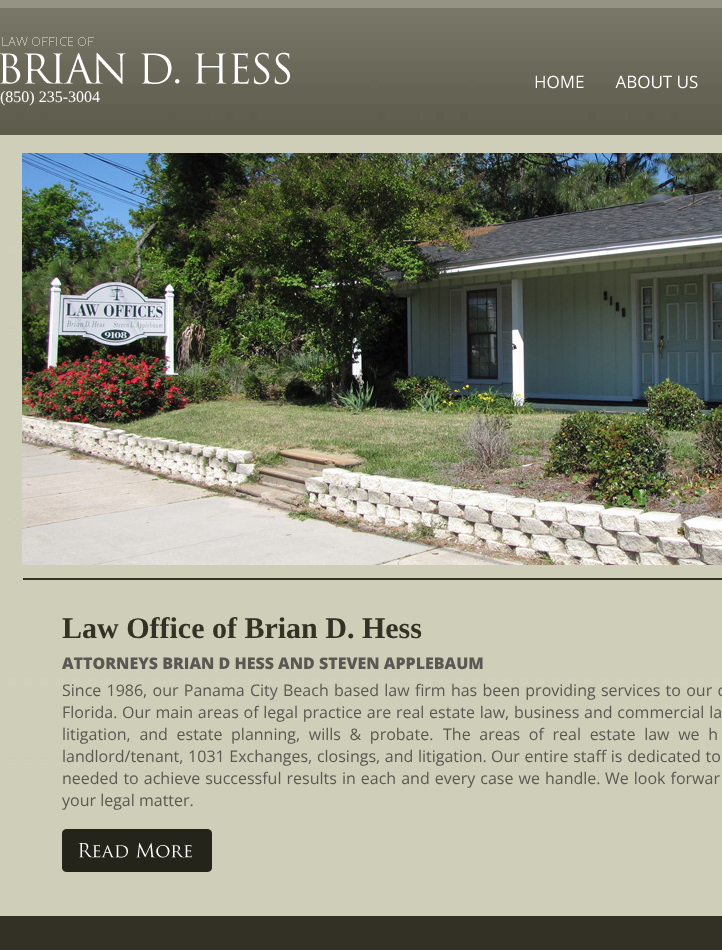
<svg xmlns="http://www.w3.org/2000/svg" width="722" height="950" viewBox="0 0 722 950">
  <rect width="100%" height="100%" fill="#ffffff"/>
  <image x="0" y="0" width="722" height="135" href="img1.png"/>
  <image x="535" y="75" width="49" height="14" href="img2.png"/>
  <image x="615" y="75" width="83" height="14" href="img3.png"/>
  <image x="0" y="37" width="290" height="48" href="img4.png"/>
  <text x="0" y="102" font-family="Liberation Serif" font-size="16" fill="#ffffff">(850) 235-3004</text>
  <image x="0" y="135" width="722" height="430" href="img5.png"/>
  <image x="22" y="153" width="700" height="412" href="img6.png"/>
  <rect x="0" y="916" width="722" height="34" fill="#333125"/>
  <image x="0" y="565" width="722" height="351" href="img7.png"/>
  <rect x="23" y="578" width="699" height="2" fill="#333225"/>
  <text x="62" y="638" font-family="Liberation Serif" font-size="30" font-weight="bold" fill="#333225">Law Office of Brian D. Hess</text>
  <text x="62" y="669" font-family="Open Sans" font-size="16" font-weight="800" fill="#595852">ATTORNEYS BRIAN D HESS AND STEVEN APPLEBAUM</text>
  <text x="62" y="696" word-spacing="1.1" font-family="Open Sans" font-size="16" fill="#595852">Since 1986, our Panama City Beach based law firm has been providing services to our c</text>
  <text x="62" y="718" font-family="Open Sans" font-size="16" fill="#595852">Florida.</text>
  <text x="122" y="718" word-spacing="0.6" font-family="Open Sans" font-size="16" fill="#595852">Our main areas of legal practice are real estate law, business and commercial la</text>
  <text x="62" y="740" word-spacing="4.5" font-family="Open Sans" font-size="16" fill="#595852">litigation, and estate planning, wills &amp; probate.</text>
  <text x="443" y="740" word-spacing="4.5" font-family="Open Sans" font-size="16" fill="#595852">The areas of real estate law we h</text>
  <text x="62" y="762" word-spacing="0.5" font-family="Open Sans" font-size="16" fill="#595852">landlord/tenant, 1031 Exchanges, closings, and litigation.</text>
  <text x="491" y="762" word-spacing="0.5" font-family="Open Sans" font-size="16" fill="#595852">Our entire staff is dedicated to</text>
  <text x="62" y="784" word-spacing="0.9" font-family="Open Sans" font-size="16" fill="#595852">needed to achieve successful results in each and every case we handle.</text>
  <text x="605" y="784" word-spacing="0.9" font-family="Open Sans" font-size="16" fill="#595852">We look forwar</text>
  <text x="62" y="806" font-family="Open Sans" font-size="16" fill="#595852">your legal matter.</text>
  <image x="62" y="829" width="150" height="43" href="img8.png"/>
</svg>
